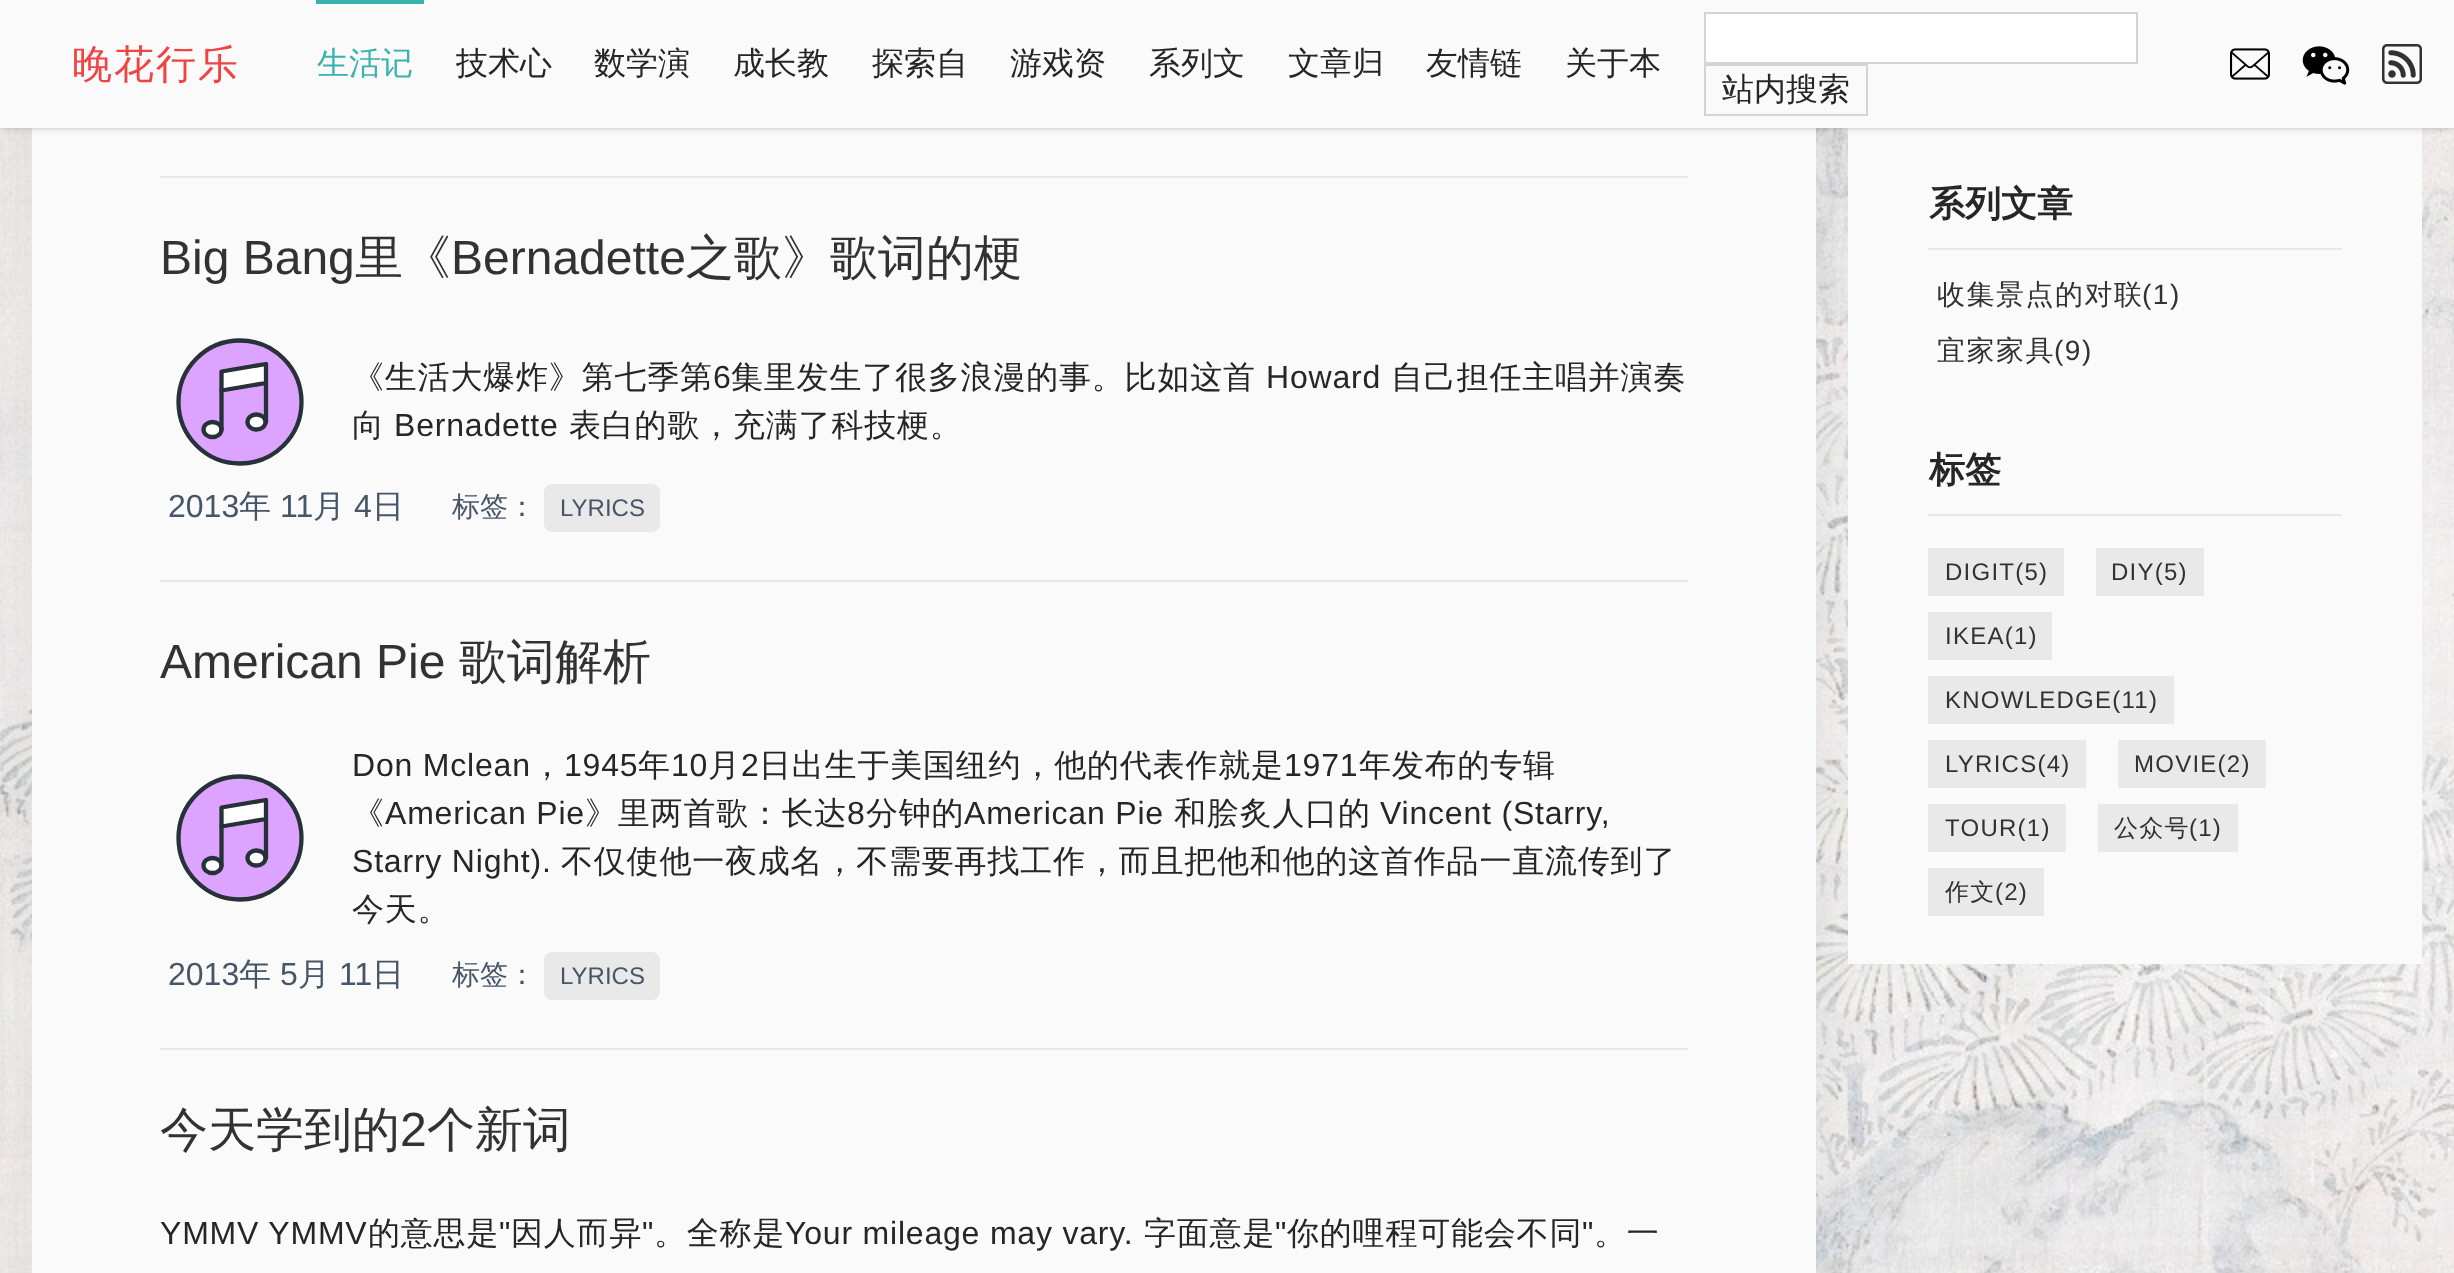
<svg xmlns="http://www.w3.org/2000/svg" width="2454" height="1273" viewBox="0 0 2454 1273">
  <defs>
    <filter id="blur1" x="-50%" y="-200%" width="200%" height="500%"><feGaussianBlur stdDeviation="50"/></filter>
    <filter id="blur2" x="-50%" y="-200%" width="200%" height="500%"><feGaussianBlur stdDeviation="2"/></filter>
    <filter id="blur3" x="-50%" y="-200%" width="200%" height="500%"><feGaussianBlur stdDeviation="3"/></filter>
    <clipPath id="clip1"><rect x="456" y="4" width="106" height="112"/></clipPath>
  </defs>
  <rect width="100%" height="100%" fill="#ffffff"/>
  <image x="0" y="128" width="2454" height="1145" href="img1.png"/>
  <rect x="56" y="-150" width="1736" height="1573" fill="#d4d4d4" filter="url(#blur1)"/>
  <rect x="32" y="128" width="1784" height="1145" fill="#fafafa"/>
  <rect x="1848" y="128" width="574" height="836" fill="#fafafa"/>
  <rect x="2" y="4" width="2450" height="124" fill="#000000" fill-opacity="0.1" filter="url(#blur2)"/>
  <rect x="0" y="2" width="2454" height="128" fill="#000000" fill-opacity="0.1" filter="url(#blur3)"/>
  <rect x="0" y="0" width="2454" height="128" fill="#fafafa"/>
  <text x="72" y="78" font-family="WenQuanYi Zen Hei" font-size="40" font-weight="500" letter-spacing="2" fill="#ef4444">晚花行乐</text>
  <rect x="316" y="0" width="108" height="4" fill="#38b2ac"/>
  <text x="317" y="74" font-family="WenQuanYi Zen Hei" font-size="32" font-weight="500" fill="#38b2ac">生活记</text>
  <g clip-path="url(#clip1)">
    <text x="456" y="74" font-family="WenQuanYi Zen Hei" font-size="32" font-weight="500" fill="#262626">技术心</text>
  </g>
  <text x="594" y="74" font-family="WenQuanYi Zen Hei" font-size="32" font-weight="500" fill="#262626">数学演</text>
  <text x="733" y="74" font-family="WenQuanYi Zen Hei" font-size="32" font-weight="500" fill="#262626">成长教</text>
  <text x="872" y="74" font-family="WenQuanYi Zen Hei" font-size="32" font-weight="500" fill="#262626">探索自</text>
  <text x="1010" y="74" font-family="WenQuanYi Zen Hei" font-size="32" font-weight="500" fill="#262626">游戏资</text>
  <text x="1149" y="74" font-family="WenQuanYi Zen Hei" font-size="32" font-weight="500" fill="#262626">系列文</text>
  <text x="1288" y="74" font-family="WenQuanYi Zen Hei" font-size="32" font-weight="500" fill="#262626">文章归</text>
  <text x="1426" y="74" font-family="WenQuanYi Zen Hei" font-size="32" font-weight="500" fill="#262626">友情链</text>
  <text x="1565" y="74" font-family="WenQuanYi Zen Hei" font-size="32" font-weight="500" fill="#262626">关于本</text>
  <rect x="1705" y="13" width="432" height="50" fill="#ffffff" stroke="#d1d5db" stroke-width="2"/>
  <rect x="1705" y="65" width="162" height="50" fill="none" stroke="#d1d5db" stroke-width="2"/>
  <text x="1722" y="100" font-family="WenQuanYi Zen Hei" font-size="32" font-weight="500" fill="#262626">站内搜索</text>
  <image x="2230" y="48" width="40" height="32" href="img2.png"/>
  <image x="2302" y="46" width="48" height="39" href="img3.png"/>
  <image x="2382" y="44" width="40" height="40" href="img4.png"/>
  <rect x="160" y="176" width="1528" height="2" fill="#e5e7eb"/>
  <text x="160" y="274" font-family="Liberation Sans" font-size="48" fill="#323232">Big Bang</text>
  <text x="355" y="274" font-family="WenQuanYi Zen Hei" font-size="48" font-weight="500" fill="#323232">里《</text>
  <text x="451" y="274" font-family="Liberation Sans" font-size="48" fill="#323232">Bernadette</text>
  <text x="686" y="274" font-family="WenQuanYi Zen Hei" font-size="48" font-weight="500" fill="#323232">之歌》歌词的梗</text>
  <circle cx="240" cy="402" r="61.5" fill="#dca3ff" stroke="#263238" stroke-width="4.3"/>
  <path d="M266 364V383L222 390V372Z" fill="#ffffff" fill-rule="evenodd"/>
  <path d="M266 364V383L221.5 390.5V371.5Z" fill="none" stroke="#263238" stroke-width="4.3" stroke-linecap="round" stroke-linejoin="round"/>
  <ellipse cx="256.5" cy="422" rx="9" ry="7.5" fill="#ffffff" stroke="#263238" stroke-width="4.3"/>
  <ellipse cx="212.5" cy="429.5" rx="9" ry="7.5" fill="#ffffff" stroke="#263238" stroke-width="4.3"/>
  <path d="M221.5 390.5V429.5M266 383.5V422" fill="none" stroke="#263238" stroke-width="4.3" stroke-linecap="round" stroke-linejoin="round"/>
  <text x="352" y="388" font-family="WenQuanYi Zen Hei" font-size="32" font-weight="500" letter-spacing="0.8" fill="#262626">《生活大爆炸》第七季第</text>
  <text x="713" y="388" font-family="Liberation Sans" font-size="32" letter-spacing="0.8" fill="#262626">6</text>
  <text x="731" y="388" font-family="WenQuanYi Zen Hei" font-size="32" font-weight="500" letter-spacing="0.8" fill="#262626">集里发生了很多浪漫的事。比如这首</text>
  <text x="1266" y="388" font-family="Liberation Sans" font-size="32" letter-spacing="0.8" fill="#262626">Howard</text>
  <text x="1391" y="388" font-family="WenQuanYi Zen Hei" font-size="32" font-weight="500" letter-spacing="0.8" fill="#262626">自己担任主唱并演奏</text>
  <text x="352" y="436" font-family="WenQuanYi Zen Hei" font-size="32" font-weight="500" letter-spacing="0.8" fill="#262626">向</text>
  <text x="394" y="436" font-family="Liberation Sans" font-size="32" letter-spacing="0.8" fill="#262626">Bernadette</text>
  <text x="569" y="436" font-family="WenQuanYi Zen Hei" font-size="32" font-weight="500" letter-spacing="0.8" fill="#262626">表白的歌，充满了科技梗。</text>
  <text x="168" y="517" font-family="Liberation Sans" font-size="32" fill="#475569">2013</text>
  <text x="239" y="517" font-family="WenQuanYi Zen Hei" font-size="32" font-weight="500" fill="#475569">年</text>
  <text x="280" y="517" font-family="Liberation Sans" font-size="32" fill="#475569">11</text>
  <text x="313" y="517" font-family="WenQuanYi Zen Hei" font-size="32" font-weight="500" fill="#475569">月</text>
  <text x="354" y="517" font-family="Liberation Sans" font-size="32" fill="#475569">4</text>
  <text x="372" y="517" font-family="WenQuanYi Zen Hei" font-size="32" font-weight="500" fill="#475569">日</text>
  <text x="452" y="516" font-family="WenQuanYi Zen Hei" font-size="28" font-weight="500" fill="#475569">标签：</text>
  <rect x="544" y="484" width="116" height="48" rx="8" fill="#e9e9e9"/>
  <text x="560" y="516" font-family="Liberation Sans" font-size="24" fill="#475569">LYRICS</text>
  <rect x="160" y="580" width="1528" height="2" fill="#e5e7eb"/>
  <text x="160" y="678" font-family="Liberation Sans" font-size="48" fill="#323232">American Pie</text>
  <text x="459" y="678" font-family="WenQuanYi Zen Hei" font-size="48" font-weight="500" fill="#323232">歌词解析</text>
  <circle cx="240" cy="838" r="61.5" fill="#dca3ff" stroke="#263238" stroke-width="4.3"/>
  <path d="M266 800V819L222 826V808Z" fill="#ffffff" fill-rule="evenodd"/>
  <path d="M266 800V819L221.5 826.5V807.5Z" fill="none" stroke="#263238" stroke-width="4.3" stroke-linecap="round" stroke-linejoin="round"/>
  <ellipse cx="256.5" cy="858" rx="9" ry="7.5" fill="#ffffff" stroke="#263238" stroke-width="4.3"/>
  <ellipse cx="212.5" cy="865.5" rx="9" ry="7.5" fill="#ffffff" stroke="#263238" stroke-width="4.3"/>
  <path d="M221.5 826.5V865.5M266 819.5V858" fill="none" stroke="#263238" stroke-width="4.3" stroke-linecap="round" stroke-linejoin="round"/>
  <text x="352" y="776" font-family="Liberation Sans" font-size="32" letter-spacing="0.8" fill="#262626">Don Mclean</text>
  <text x="531" y="776" font-family="WenQuanYi Zen Hei" font-size="32" font-weight="500" letter-spacing="0.8" fill="#262626">，</text>
  <text x="564" y="776" font-family="Liberation Sans" font-size="32" letter-spacing="0.8" fill="#262626">1945</text>
  <text x="638" y="776" font-family="WenQuanYi Zen Hei" font-size="32" font-weight="500" letter-spacing="0.8" fill="#262626">年</text>
  <text x="671" y="776" font-family="Liberation Sans" font-size="32" letter-spacing="0.8" fill="#262626">10</text>
  <text x="708" y="776" font-family="WenQuanYi Zen Hei" font-size="32" font-weight="500" letter-spacing="0.8" fill="#262626">月</text>
  <text x="741" y="776" font-family="Liberation Sans" font-size="32" letter-spacing="0.8" fill="#262626">2</text>
  <text x="759" y="776" font-family="WenQuanYi Zen Hei" font-size="32" font-weight="500" letter-spacing="0.8" fill="#262626">日出生于美国纽约，他的代表作就是</text>
  <text x="1284" y="776" font-family="Liberation Sans" font-size="32" letter-spacing="0.8" fill="#262626">1971</text>
  <text x="1359" y="776" font-family="WenQuanYi Zen Hei" font-size="32" font-weight="500" letter-spacing="0.8" fill="#262626">年发布的专辑</text>
  <text x="352" y="824" font-family="WenQuanYi Zen Hei" font-size="32" font-weight="500" letter-spacing="0.8" fill="#262626">《</text>
  <text x="385" y="824" font-family="Liberation Sans" font-size="32" letter-spacing="0.8" fill="#262626">American Pie</text>
  <text x="585" y="824" font-family="WenQuanYi Zen Hei" font-size="32" font-weight="500" letter-spacing="0.8" fill="#262626">》里两首歌：长达</text>
  <text x="847" y="824" font-family="Liberation Sans" font-size="32" letter-spacing="0.8" fill="#262626">8</text>
  <text x="866" y="824" font-family="WenQuanYi Zen Hei" font-size="32" font-weight="500" letter-spacing="0.8" fill="#262626">分钟的</text>
  <text x="964" y="824" font-family="Liberation Sans" font-size="32" letter-spacing="0.8" fill="#262626">American Pie</text>
  <text x="1174" y="824" font-family="WenQuanYi Zen Hei" font-size="32" font-weight="500" letter-spacing="0.8" fill="#262626">和脍炙人口的</text>
  <text x="1380" y="824" font-family="Liberation Sans" font-size="32" letter-spacing="0.8" fill="#262626">Vincent (Starry,</text>
  <text x="352" y="872" font-family="Liberation Sans" font-size="32" letter-spacing="0.8" fill="#262626">Starry Night).</text>
  <text x="561" y="872" font-family="WenQuanYi Zen Hei" font-size="32" font-weight="500" letter-spacing="0.8" fill="#262626">不仅使他一夜成名，不需要再找工作，而且把他和他的这首作品一直流传到了</text>
  <text x="352" y="920" font-family="WenQuanYi Zen Hei" font-size="32" font-weight="500" letter-spacing="0.8" fill="#262626">今天。</text>
  <text x="168" y="985" font-family="Liberation Sans" font-size="32" fill="#475569">2013</text>
  <text x="239" y="985" font-family="WenQuanYi Zen Hei" font-size="32" font-weight="500" fill="#475569">年</text>
  <text x="280" y="985" font-family="Liberation Sans" font-size="32" fill="#475569">5</text>
  <text x="298" y="985" font-family="WenQuanYi Zen Hei" font-size="32" font-weight="500" fill="#475569">月</text>
  <text x="339" y="985" font-family="Liberation Sans" font-size="32" fill="#475569">11</text>
  <text x="372" y="985" font-family="WenQuanYi Zen Hei" font-size="32" font-weight="500" fill="#475569">日</text>
  <text x="452" y="984" font-family="WenQuanYi Zen Hei" font-size="28" font-weight="500" fill="#475569">标签：</text>
  <rect x="544" y="952" width="116" height="48" rx="8" fill="#e9e9e9"/>
  <text x="560" y="984" font-family="Liberation Sans" font-size="24" fill="#475569">LYRICS</text>
  <rect x="160" y="1048" width="1528" height="2" fill="#e5e7eb"/>
  <text x="160" y="1146" font-family="WenQuanYi Zen Hei" font-size="48" font-weight="500" fill="#323232">今天学到的</text>
  <text x="400" y="1146" font-family="Liberation Sans" font-size="48" fill="#323232">2</text>
  <text x="427" y="1146" font-family="WenQuanYi Zen Hei" font-size="48" font-weight="500" fill="#323232">个新词</text>
  <text x="160" y="1244" font-family="Liberation Sans" font-size="32" letter-spacing="0.8" fill="#262626">YMMV YMMV</text>
  <text x="368" y="1244" font-family="WenQuanYi Zen Hei" font-size="32" font-weight="500" letter-spacing="0.8" fill="#262626">的意思是</text>
  <text x="499" y="1244" font-family="Liberation Sans" font-size="32" letter-spacing="0.8" fill="#262626">"</text>
  <text x="511" y="1244" font-family="WenQuanYi Zen Hei" font-size="32" font-weight="500" letter-spacing="0.8" fill="#262626">因人而异</text>
  <text x="642" y="1244" font-family="Liberation Sans" font-size="32" letter-spacing="0.8" fill="#262626">"</text>
  <text x="654" y="1244" font-family="WenQuanYi Zen Hei" font-size="32" font-weight="500" letter-spacing="0.8" fill="#262626">。全称是</text>
  <text x="785" y="1244" font-family="Liberation Sans" font-size="32" letter-spacing="0.8" fill="#262626">Your mileage may vary.</text>
  <text x="1144" y="1244" font-family="WenQuanYi Zen Hei" font-size="32" font-weight="500" letter-spacing="0.8" fill="#262626">字面意是</text>
  <text x="1275" y="1244" font-family="Liberation Sans" font-size="32" letter-spacing="0.8" fill="#262626">"</text>
  <text x="1287" y="1244" font-family="WenQuanYi Zen Hei" font-size="32" font-weight="500" letter-spacing="0.8" fill="#262626">你的哩程可能会不同</text>
  <text x="1582" y="1244" font-family="Liberation Sans" font-size="32" letter-spacing="0.8" fill="#262626">"</text>
  <text x="1594" y="1244" font-family="WenQuanYi Zen Hei" font-size="32" font-weight="500" letter-spacing="0.8" fill="#262626">。一</text>
  <rect x="1928" y="248" width="414" height="2" fill="#e5e7eb"/>
  <text x="1929" y="216" font-family="WenQuanYi Zen Hei" font-size="36" font-weight="bold" fill="#262626">系列文章</text>
  <text x="1937" y="304" font-family="WenQuanYi Zen Hei" font-size="28" font-weight="500" letter-spacing="1.5" fill="#323232">收集景点的对联</text>
  <text x="2142" y="304" font-family="Liberation Sans" font-size="28" letter-spacing="1.5" fill="#323232">(1)</text>
  <text x="1937" y="360" font-family="WenQuanYi Zen Hei" font-size="28" font-weight="500" letter-spacing="1.5" fill="#323232">宜家家具</text>
  <text x="2054" y="360" font-family="Liberation Sans" font-size="28" letter-spacing="1.5" fill="#323232">(9)</text>
  <rect x="1928" y="514" width="414" height="2" fill="#e5e7eb"/>
  <text x="1929" y="482" font-family="WenQuanYi Zen Hei" font-size="36" font-weight="bold" fill="#262626">标签</text>
  <rect x="1928" y="548" width="136" height="48" fill="#e9e9e9"/>
  <text x="1945" y="580" font-family="Liberation Sans" font-size="24" letter-spacing="1.25" fill="#323232">DIGIT(5)</text>
  <rect x="2096" y="548" width="108" height="48" fill="#e9e9e9"/>
  <text x="2111" y="580" font-family="Liberation Sans" font-size="24" letter-spacing="1.25" fill="#323232">DIY(5)</text>
  <rect x="1928" y="612" width="124" height="48" fill="#e9e9e9"/>
  <text x="1945" y="644" font-family="Liberation Sans" font-size="24" letter-spacing="1.25" fill="#323232">IKEA(1)</text>
  <rect x="1928" y="676" width="246" height="48" fill="#e9e9e9"/>
  <text x="1945" y="708" font-family="Liberation Sans" font-size="24" letter-spacing="1.25" fill="#323232">KNOWLEDGE(11)</text>
  <rect x="1928" y="740" width="158" height="48" fill="#e9e9e9"/>
  <text x="1945" y="772" font-family="Liberation Sans" font-size="24" letter-spacing="1.25" fill="#323232">LYRICS(4)</text>
  <rect x="2118" y="740" width="148" height="48" fill="#e9e9e9"/>
  <text x="2134" y="772" font-family="Liberation Sans" font-size="24" letter-spacing="1.25" fill="#323232">MOVIE(2)</text>
  <rect x="1928" y="804" width="138" height="48" fill="#e9e9e9"/>
  <text x="1945" y="836" font-family="Liberation Sans" font-size="24" letter-spacing="1.25" fill="#323232">TOUR(1)</text>
  <rect x="2098" y="804" width="140" height="48" fill="#e9e9e9"/>
  <text x="2114" y="836" font-family="WenQuanYi Zen Hei" font-size="24" font-weight="500" letter-spacing="1.25" fill="#323232">公众号</text>
  <text x="2189" y="836" font-family="Liberation Sans" font-size="24" letter-spacing="1.25" fill="#323232">(1)</text>
  <rect x="1928" y="868" width="116" height="48" fill="#e9e9e9"/>
  <text x="1945" y="900" font-family="WenQuanYi Zen Hei" font-size="24" font-weight="500" letter-spacing="1.25" fill="#323232">作文</text>
  <text x="1995" y="900" font-family="Liberation Sans" font-size="24" letter-spacing="1.25" fill="#323232">(2)</text>
</svg>
